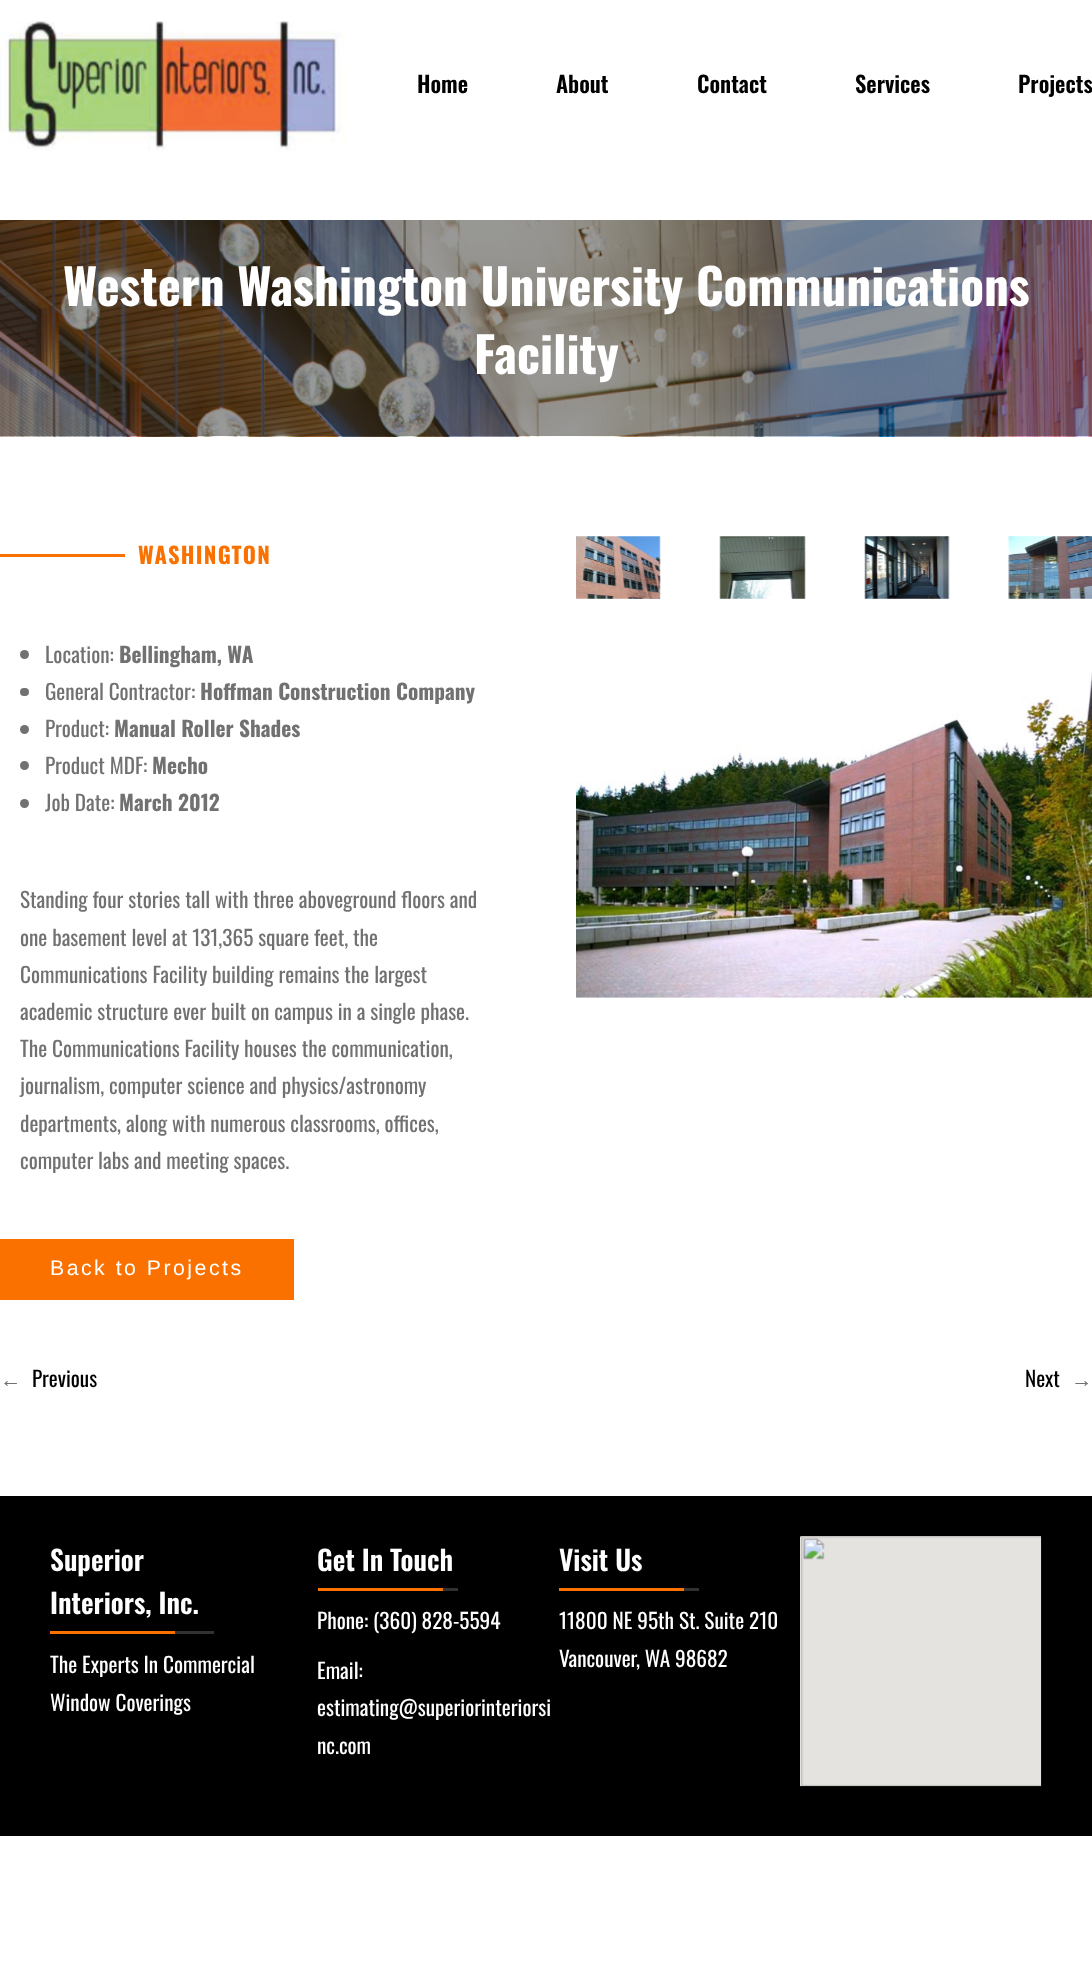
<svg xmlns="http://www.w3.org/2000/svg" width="1092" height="1979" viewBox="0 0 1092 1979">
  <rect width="100%" height="100%" fill="#ffffff"/>
  <image x="0" y="21" width="346" height="130" href="img1.png"/>
  <text x="417" y="93" font-family="Oswald" font-size="22.5" font-weight="600" fill="#000000">Home</text>
  <text x="556" y="93" font-family="Oswald" font-size="22.5" font-weight="600" fill="#000000">About</text>
  <text x="697" y="93" font-family="Oswald" font-size="22.5" font-weight="600" fill="#000000">Contact</text>
  <text x="855" y="93" font-family="Oswald" font-size="22.5" font-weight="600" fill="#000000">Services</text>
  <text x="1018" y="93" font-family="Oswald" font-size="22.5" font-weight="600" fill="#000000">Projects</text>
  <image x="0" y="220" width="1092" height="217" href="img2.png"/>
  <text x="63" y="306" font-family="Oswald" font-size="49.2" font-weight="bold" fill="#ffffff">Western Washington University Communications</text>
  <text x="474" y="374" font-family="Oswald" font-size="49.2" font-weight="bold" fill="#ffffff">Facility</text>
  <rect x="0" y="554" width="125" height="3" fill="#fb7100"/>
  <text x="138" y="564" font-family="Oswald" font-size="22.5" font-weight="bold" letter-spacing="1.25" fill="#fb7100">WASHINGTON</text>
  <circle cx="24.5" cy="654.5" r="4.5" fill="#717171"/>
  <text x="45" y="663" font-family="Oswald" font-size="21.25" fill="#717171">Location:</text>
  <text x="119" y="663" font-family="Oswald" font-size="21.25" font-weight="bold" fill="#717171">Bellingham, WA</text>
  <rect x="20" y="688" width="9" height="8" rx="4" fill="#717171"/>
  <text x="45" y="700" font-family="Oswald" font-size="21.25" fill="#717171">General Contractor:</text>
  <text x="200" y="700" font-family="Oswald" font-size="21.25" font-weight="bold" fill="#717171">Hoffman Construction Company</text>
  <circle cx="24.5" cy="729.5" r="4.5" fill="#717171"/>
  <text x="45" y="737" font-family="Oswald" font-size="21.25" fill="#717171">Product:</text>
  <text x="114" y="737" font-family="Oswald" font-size="21.25" font-weight="bold" fill="#717171">Manual Roller Shades</text>
  <circle cx="24.5" cy="765.5" r="4.5" fill="#717171"/>
  <text x="45" y="774" font-family="Oswald" font-size="21.25" fill="#717171">Product MDF:</text>
  <text x="152" y="774" font-family="Oswald" font-size="21.25" font-weight="bold" fill="#717171">Mecho</text>
  <circle cx="24.5" cy="803.5" r="4.5" fill="#717171"/>
  <text x="45" y="811" font-family="Oswald" font-size="21.25" fill="#717171">Job Date:</text>
  <text x="119" y="811" font-family="Oswald" font-size="21.25" font-weight="bold" fill="#717171">March 2012</text>
  <text x="20" y="908" font-family="Oswald" font-size="21.25" fill="#717171">Standing four stories tall with three aboveground floors and</text>
  <text x="20" y="946" font-family="Oswald" font-size="21.25" fill="#717171">one basement level at 131,365 square feet, the</text>
  <text x="20" y="983" font-family="Oswald" font-size="21.25" fill="#717171">Communications Facility building remains the largest</text>
  <text x="20" y="1020" font-family="Oswald" font-size="21.25" fill="#717171">academic structure ever built on campus in a single phase.</text>
  <text x="20" y="1057" font-family="Oswald" font-size="21.25" fill="#717171">The Communications Facility houses the communication,</text>
  <text x="20" y="1094" font-family="Oswald" font-size="21.25" fill="#717171">journalism, computer science and physics/astronomy</text>
  <text x="20" y="1132" font-family="Oswald" font-size="21.25" fill="#717171">departments, along with numerous classrooms, offices,</text>
  <text x="20" y="1169" font-family="Oswald" font-size="21.25" fill="#717171">computer labs and meeting spaces.</text>
  <rect x="0" y="1239" width="294" height="61" fill="#fb7100"/>
  <text x="50" y="1275" font-family="Liberation Sans" font-size="21.25" letter-spacing="2.5" fill="#ffffff">Back to Projects</text>
  <image x="576" y="536" width="85" height="63" href="img3.png"/>
  <image x="719" y="536" width="87" height="63" href="img4.png"/>
  <image x="864" y="536" width="86" height="63" href="img5.png"/>
  <image x="1008" y="536" width="84" height="63" href="img6.png"/>
  <image x="576" y="672" width="516" height="326" href="img7.png"/>
  <text x="0" y="1387" font-family="Liberation Sans" font-size="21.25" fill="#717171">←</text>
  <text x="32" y="1387" font-family="Oswald" font-size="21.25" fill="#000000">Previous</text>
  <text x="1025" y="1387" font-family="Oswald" font-size="21.25" fill="#000000">Next</text>
  <text x="1071" y="1387" font-family="Liberation Sans" font-size="21.25" fill="#717171">→</text>
  <rect x="0" y="1496" width="1092" height="340" fill="#000000"/>
  <rect x="175" y="1631" width="39" height="3" fill="#313131"/>
  <text x="50" y="1571" font-family="Oswald" font-size="27.5" font-weight="600" fill="#ffffff">Superior</text>
  <text x="50" y="1614" font-family="Oswald" font-size="27.5" font-weight="600" fill="#ffffff">Interiors, Inc.</text>
  <rect x="50" y="1631" width="125" height="3" fill="#fb7100"/>
  <text x="50" y="1673" font-family="Oswald" font-size="21.25" fill="#ffffff">The Experts In Commercial</text>
  <text x="50" y="1711" font-family="Oswald" font-size="21.25" fill="#ffffff">Window Coverings</text>
  <rect x="443" y="1588" width="15" height="3" fill="#313131"/>
  <text x="317" y="1571" font-family="Oswald" font-size="27.5" font-weight="600" fill="#ffffff">Get In Touch</text>
  <rect x="318" y="1588" width="125" height="3" fill="#fb7100"/>
  <text x="317" y="1629" font-family="Oswald" font-size="21.25" fill="#ffffff">Phone: (360) 828-5594</text>
  <text x="317" y="1679" font-family="Oswald" font-size="21.25" fill="#ffffff">Email:</text>
  <text x="317" y="1716" font-family="Oswald" font-size="21.25" fill="#ffffff">estimating@superiorinteriorsi</text>
  <text x="317" y="1754" font-family="Oswald" font-size="21.25" fill="#ffffff">nc.com</text>
  <rect x="684" y="1588" width="15" height="3" fill="#313131"/>
  <text x="559" y="1571" font-family="Oswald" font-size="27.5" font-weight="600" fill="#ffffff">Visit Us</text>
  <rect x="559" y="1588" width="125" height="3" fill="#fb7100"/>
  <text x="559" y="1629" font-family="Oswald" font-size="21.25" fill="#ffffff">11800 NE 95th St. Suite 210</text>
  <text x="559" y="1667" font-family="Oswald" font-size="21.25" fill="#ffffff">Vancouver, WA 98682</text>
  <image x="800" y="1536" width="242" height="251" href="img8.png"/>
</svg>
